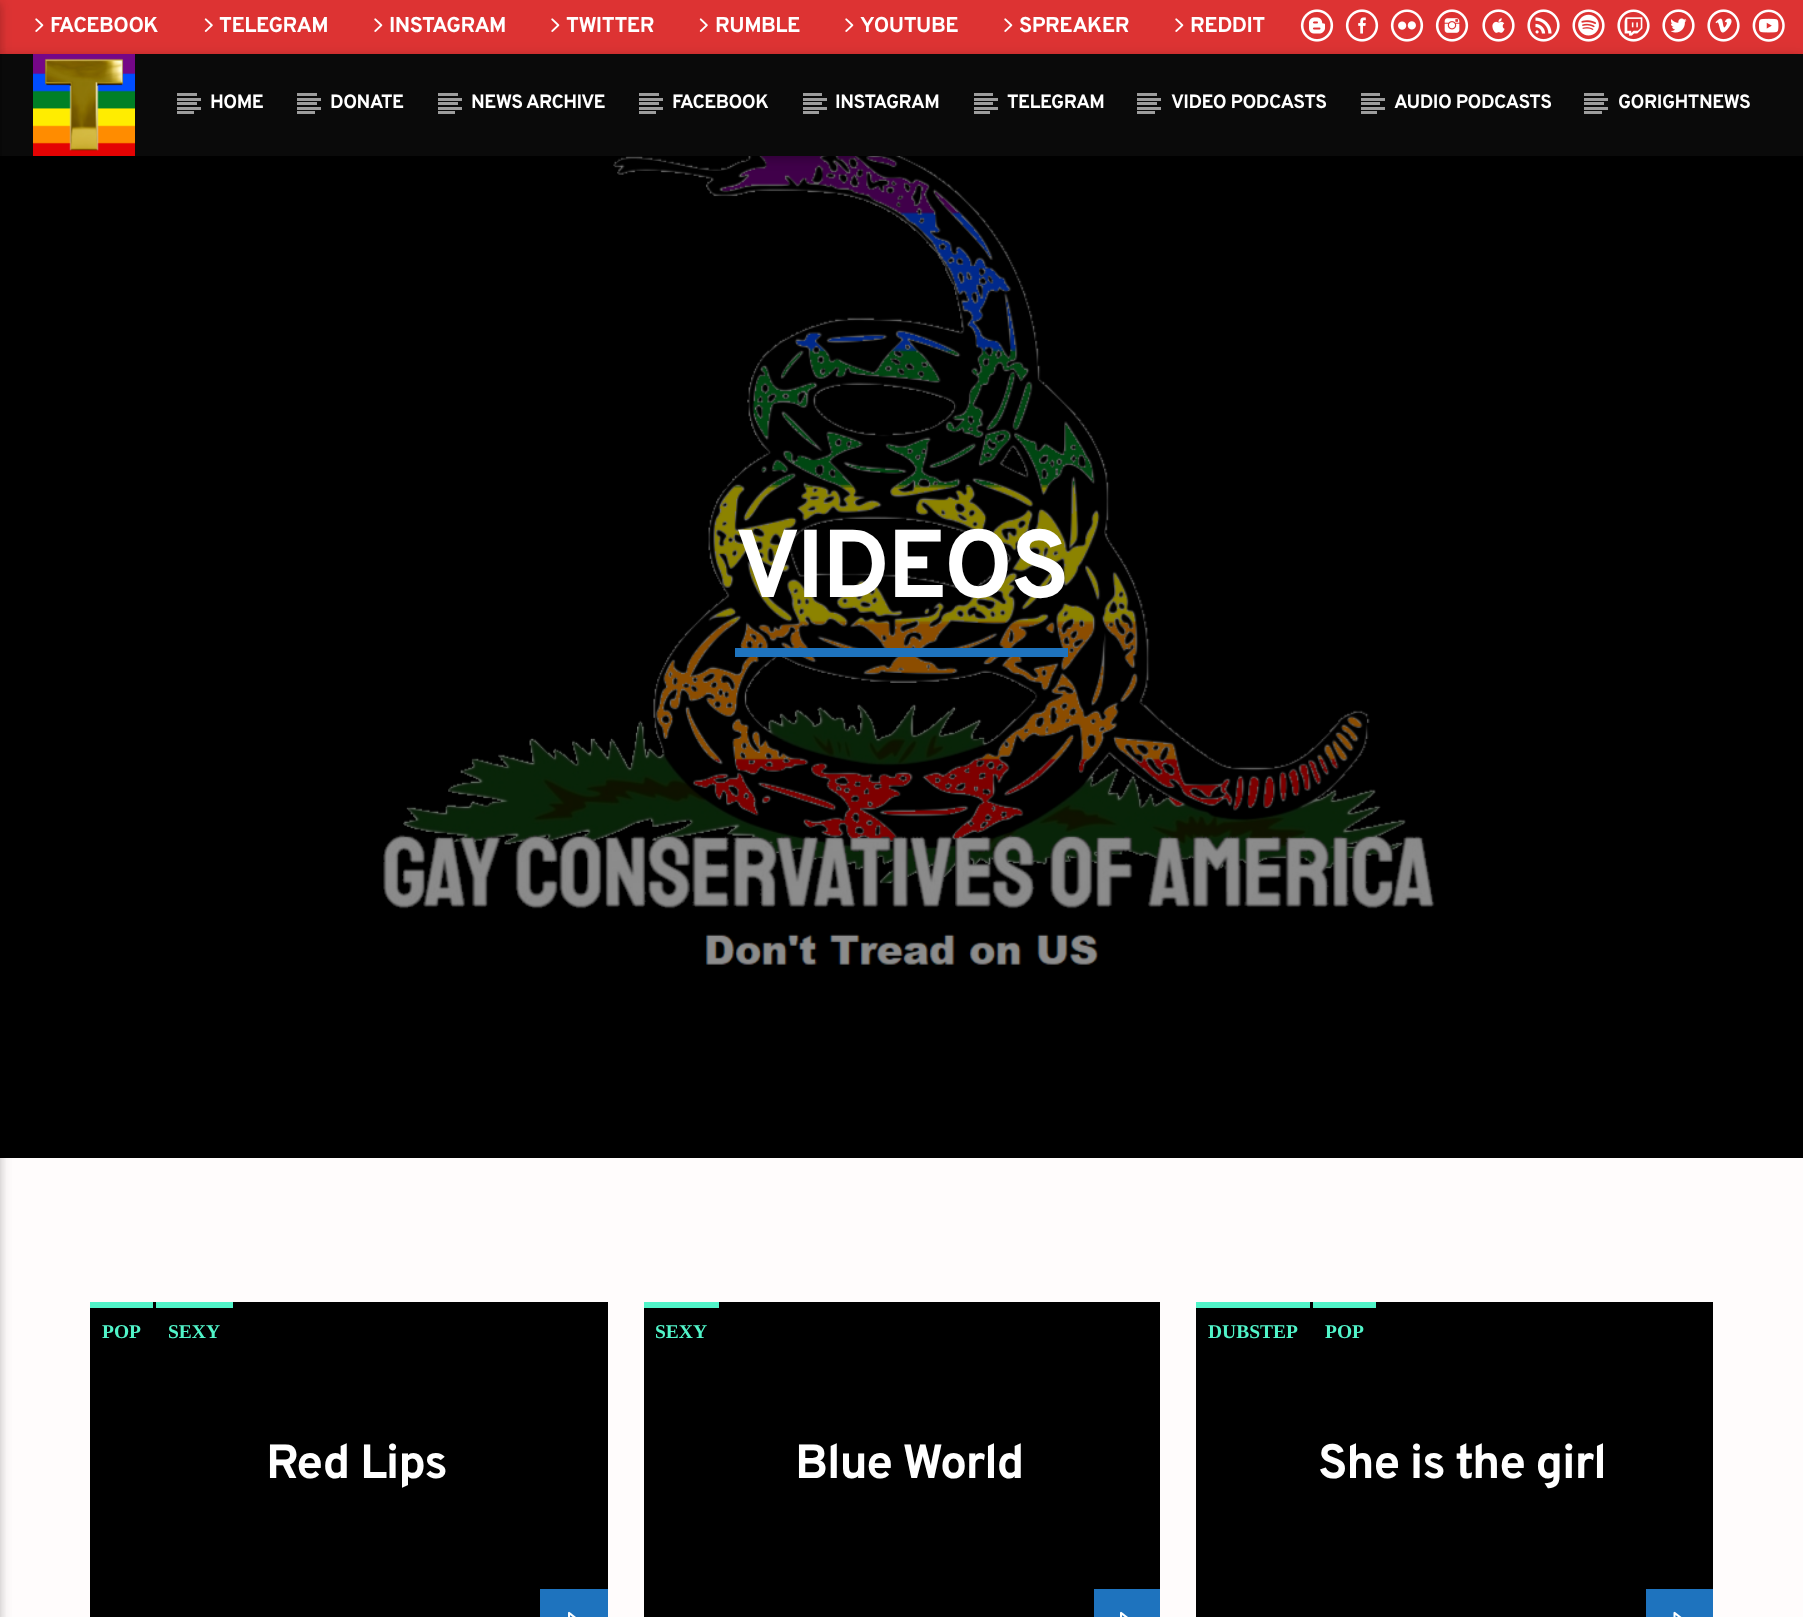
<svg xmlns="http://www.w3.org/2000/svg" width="1803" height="1617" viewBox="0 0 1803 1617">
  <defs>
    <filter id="blur1" x="-50%" y="-200%" width="200%" height="500%"><feGaussianBlur stdDeviation="7.5"/></filter>
    <filter id="blur2" x="-50%" y="-200%" width="200%" height="500%"><feGaussianBlur stdDeviation="4"/></filter>
  </defs>
  <rect width="100%" height="100%" fill="#fffcfc"/>
  <rect x="0" y="0" width="1803" height="54" fill="#dd3333"/>
  <image x="1300" y="9" width="34" height="33" href="img3.png"/>
  <image x="1345" y="9" width="34" height="33" href="img4.png"/>
  <image x="1390" y="9" width="34" height="33" href="img5.png"/>
  <image x="1435" y="9" width="34" height="33" href="img6.png"/>
  <image x="1482" y="9" width="33" height="33" href="img7.png"/>
  <image x="1527" y="9" width="33" height="33" href="img8.png"/>
  <image x="1572" y="9" width="33" height="33" href="img9.png"/>
  <image x="1617" y="9" width="33" height="33" href="img10.png"/>
  <image x="1662" y="9" width="33" height="33" href="img11.png"/>
  <image x="1707" y="9" width="33" height="33" href="img12.png"/>
  <image x="1752" y="9" width="33" height="33" href="img13.png"/>
  <rect x="0" y="156" width="1803" height="1002" fill="#000000"/>
  <image x="383" y="156" width="1052" height="809" href="img15.png"/>
  <rect x="0" y="57" width="1803" height="102" fill="#000000" fill-opacity="0.12" filter="url(#blur1)"/>
  <rect x="0" y="57" width="1803" height="102" fill="#000000" fill-opacity="0.16" filter="url(#blur2)"/>
  <rect x="0" y="54" width="1803" height="102" fill="#0a0a0a"/>
  <rect x="-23" y="3" width="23" height="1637" fill="#000000" fill-opacity="0.12" filter="url(#blur1)"/>
  <rect x="-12" y="3" width="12" height="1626" fill="#000000" fill-opacity="0.16" filter="url(#blur2)"/>
  <image x="35" y="18" width="9" height="14" href="img1.png"/>
  <text x="50" y="32" font-family="Overpass" font-size="21.5" font-weight="bold" letter-spacing="-0.5" fill="#ffffff">FACEBOOK</text>
  <image x="204" y="18" width="9" height="14" href="img2.png"/>
  <text x="219" y="32" font-family="Overpass" font-size="21.5" font-weight="bold" letter-spacing="-0.5" fill="#ffffff">TELEGRAM</text>
  <image x="374" y="18" width="9" height="14" href="img1.png"/>
  <text x="389" y="32" font-family="Overpass" font-size="21.5" font-weight="bold" letter-spacing="-0.5" fill="#ffffff">INSTAGRAM</text>
  <image x="551" y="18" width="9" height="14" href="img1.png"/>
  <text x="566" y="32" font-family="Overpass" font-size="21.5" font-weight="bold" letter-spacing="-0.5" fill="#ffffff">TWITTER</text>
  <image x="699" y="18" width="9" height="14" href="img2.png"/>
  <text x="715" y="32" font-family="Overpass" font-size="21.5" font-weight="bold" letter-spacing="-0.5" fill="#ffffff">RUMBLE</text>
  <image x="845" y="18" width="9" height="14" href="img1.png"/>
  <text x="860" y="32" font-family="Overpass" font-size="21.5" font-weight="bold" letter-spacing="-0.5" fill="#ffffff">YOUTUBE</text>
  <image x="1004" y="18" width="9" height="14" href="img1.png"/>
  <text x="1019" y="32" font-family="Overpass" font-size="21.5" font-weight="bold" letter-spacing="-0.5" fill="#ffffff">SPREAKER</text>
  <image x="1175" y="18" width="9" height="14" href="img1.png"/>
  <text x="1190" y="32" font-family="Overpass" font-size="21.5" font-weight="bold" letter-spacing="-0.5" fill="#ffffff">REDDIT</text>
  <image x="33" y="54" width="102" height="102" href="img14.png"/>
  <rect x="177" y="93" width="20" height="3" fill="#9d9d9d"/>
  <rect x="177" y="102" width="20" height="3" fill="#9d9d9d"/>
  <text x="210" y="108" font-family="Overpass" font-size="19.25" font-weight="bold" letter-spacing="-0.5" fill="#ffffff">HOME</text>
  <rect x="177" y="98" width="24" height="3" fill="#9d9d9d"/>
  <rect x="177" y="107" width="24" height="3" fill="#9d9d9d"/>
  <rect x="177" y="111" width="17" height="3" fill="#9d9d9d"/>
  <rect x="297" y="93" width="20" height="3" fill="#9d9d9d"/>
  <rect x="297" y="102" width="20" height="3" fill="#9d9d9d"/>
  <text x="330" y="108" font-family="Overpass" font-size="19.25" font-weight="bold" letter-spacing="-0.5" fill="#ffffff">DONATE</text>
  <rect x="297" y="98" width="24" height="3" fill="#9d9d9d"/>
  <rect x="297" y="107" width="24" height="3" fill="#9d9d9d"/>
  <rect x="297" y="111" width="18" height="3" fill="#9d9d9d"/>
  <rect x="438" y="93" width="20" height="3" fill="#9d9d9d"/>
  <rect x="438" y="102" width="20" height="3" fill="#9d9d9d"/>
  <text x="471" y="108" font-family="Overpass" font-size="19.25" font-weight="bold" letter-spacing="-0.5" fill="#ffffff">NEWS ARCHIVE</text>
  <rect x="438" y="98" width="24" height="3" fill="#9d9d9d"/>
  <rect x="438" y="107" width="24" height="3" fill="#9d9d9d"/>
  <rect x="438" y="111" width="17" height="3" fill="#9d9d9d"/>
  <rect x="639" y="93" width="20" height="3" fill="#9d9d9d"/>
  <rect x="639" y="102" width="20" height="3" fill="#9d9d9d"/>
  <text x="672" y="108" font-family="Overpass" font-size="19.25" font-weight="bold" letter-spacing="-0.5" fill="#ffffff">FACEBOOK</text>
  <rect x="639" y="98" width="24" height="3" fill="#9d9d9d"/>
  <rect x="639" y="107" width="24" height="3" fill="#9d9d9d"/>
  <rect x="639" y="111" width="17" height="3" fill="#9d9d9d"/>
  <rect x="803" y="93" width="19" height="3" fill="#9d9d9d"/>
  <rect x="803" y="102" width="19" height="3" fill="#9d9d9d"/>
  <text x="835" y="108" font-family="Overpass" font-size="19.25" font-weight="bold" letter-spacing="-0.5" fill="#ffffff">INSTAGRAM</text>
  <rect x="803" y="98" width="24" height="3" fill="#9d9d9d"/>
  <rect x="803" y="107" width="24" height="3" fill="#9d9d9d"/>
  <rect x="803" y="111" width="16" height="3" fill="#9d9d9d"/>
  <rect x="974" y="93" width="19" height="3" fill="#9d9d9d"/>
  <rect x="974" y="102" width="19" height="3" fill="#9d9d9d"/>
  <text x="1007" y="108" font-family="Overpass" font-size="19.25" font-weight="bold" letter-spacing="-0.5" fill="#ffffff">TELEGRAM</text>
  <rect x="974" y="98" width="24" height="3" fill="#9d9d9d"/>
  <rect x="974" y="107" width="24" height="3" fill="#9d9d9d"/>
  <rect x="974" y="111" width="16" height="3" fill="#9d9d9d"/>
  <rect x="1137" y="93" width="20" height="3" fill="#9d9d9d"/>
  <rect x="1137" y="102" width="20" height="3" fill="#9d9d9d"/>
  <text x="1171" y="108" font-family="Overpass" font-size="19.25" font-weight="bold" letter-spacing="-0.5" fill="#ffffff">VIDEO PODCASTS</text>
  <rect x="1137" y="98" width="24" height="3" fill="#9d9d9d"/>
  <rect x="1137" y="107" width="24" height="3" fill="#9d9d9d"/>
  <rect x="1137" y="111" width="18" height="3" fill="#9d9d9d"/>
  <rect x="1361" y="93" width="19" height="3" fill="#9d9d9d"/>
  <rect x="1361" y="102" width="19" height="3" fill="#9d9d9d"/>
  <text x="1394" y="108" font-family="Overpass" font-size="19.25" font-weight="bold" letter-spacing="-0.5" fill="#ffffff">AUDIO PODCASTS</text>
  <rect x="1361" y="98" width="24" height="3" fill="#9d9d9d"/>
  <rect x="1361" y="107" width="24" height="3" fill="#9d9d9d"/>
  <rect x="1361" y="111" width="16" height="3" fill="#9d9d9d"/>
  <rect x="1584" y="93" width="20" height="3" fill="#9d9d9d"/>
  <rect x="1584" y="102" width="20" height="3" fill="#9d9d9d"/>
  <text x="1618" y="108" font-family="Overpass" font-size="19.25" font-weight="bold" letter-spacing="-0.5" fill="#ffffff">GORIGHTNEWS</text>
  <rect x="1584" y="98" width="24" height="3" fill="#9d9d9d"/>
  <rect x="1584" y="107" width="24" height="3" fill="#9d9d9d"/>
  <rect x="1584" y="111" width="18" height="3" fill="#9d9d9d"/>
  <rect x="735" y="648" width="333" height="9" fill="#1e73be"/>
  <text x="735" y="597" font-family="Overpass" font-size="96" font-weight="bold" letter-spacing="-2.5" fill="#ffffff">VIDEOS</text>
  <rect x="90" y="1302" width="518" height="315" fill="#000000"/>
  <rect x="90" y="1302" width="63" height="6" fill="#51f4c9"/>
  <text x="102" y="1338" font-family="Liberation Serif" font-size="19.5" font-weight="bold" fill="#51f4c9">POP</text>
  <rect x="156" y="1302" width="77" height="6" fill="#51f4c9"/>
  <text x="168" y="1338" font-family="Liberation Serif" font-size="19.5" font-weight="bold" fill="#51f4c9">SEXY</text>
  <text x="266" y="1478" font-family="Overpass" font-size="48" font-weight="bold" letter-spacing="-1.25" fill="#ffffff">Red Lips</text>
  <rect x="540" y="1589" width="68" height="28" fill="#1e73be"/>
  <image x="568" y="1611" width="8" height="6" href="img16.png"/>
  <rect x="644" y="1302" width="516" height="315" fill="#000000"/>
  <rect x="644" y="1302" width="75" height="6" fill="#51f4c9"/>
  <text x="655" y="1338" font-family="Liberation Serif" font-size="19.5" font-weight="bold" fill="#51f4c9">SEXY</text>
  <text x="795" y="1478" font-family="Overpass" font-size="48" font-weight="bold" letter-spacing="-1.25" fill="#ffffff">Blue World</text>
  <rect x="1094" y="1589" width="66" height="28" fill="#1e73be"/>
  <image x="1120" y="1611" width="8" height="6" href="img16.png"/>
  <rect x="1196" y="1302" width="517" height="315" fill="#000000"/>
  <rect x="1196" y="1302" width="114" height="6" fill="#51f4c9"/>
  <text x="1208" y="1338" font-family="Liberation Serif" font-size="19.5" font-weight="bold" fill="#51f4c9">DUBSTEP</text>
  <rect x="1313" y="1302" width="63" height="6" fill="#51f4c9"/>
  <text x="1325" y="1338" font-family="Liberation Serif" font-size="19.5" font-weight="bold" fill="#51f4c9">POP</text>
  <text x="1318" y="1478" font-family="Overpass" font-size="48" font-weight="bold" letter-spacing="-1.25" fill="#ffffff">She is the girl</text>
  <rect x="1646" y="1589" width="67" height="28" fill="#1e73be"/>
  <image x="1673" y="1611" width="9" height="6" href="img17.png"/>
</svg>
